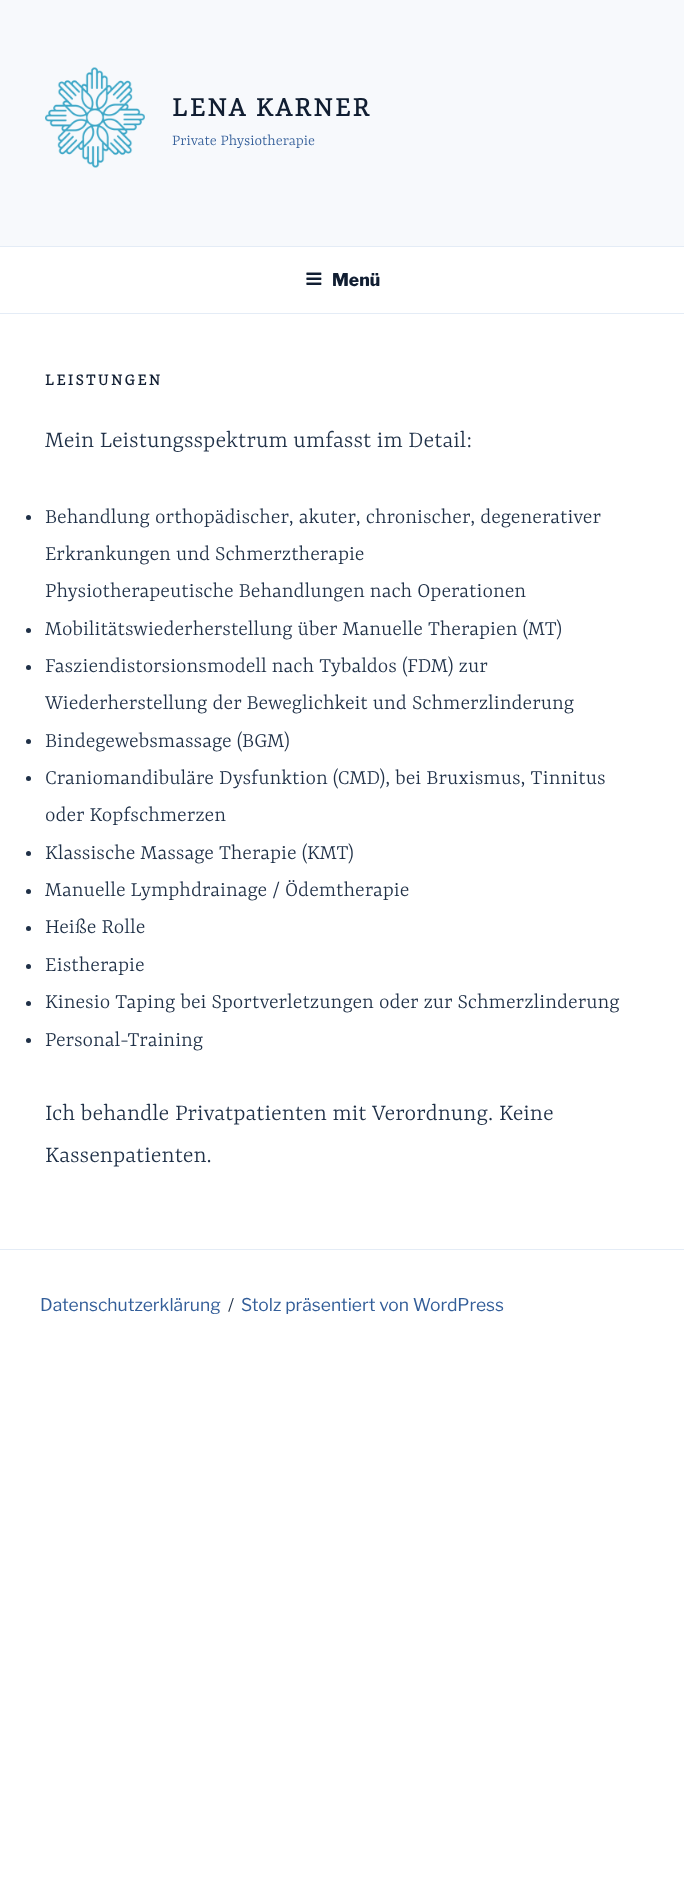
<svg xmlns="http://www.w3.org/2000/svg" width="684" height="1881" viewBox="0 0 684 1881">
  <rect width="100%" height="100%" fill="#ffffff"/>
  <rect x="0" y="0" width="684" height="246" fill="#f7f9fc"/>
  <image x="45" y="67" width="100" height="101" href="img1.png"/>
  <text x="172" y="116" font-family="Yrsa" font-size="30" font-weight="bold" letter-spacing="2.4" fill="#111e32">LENA KARNER</text>
  <text x="172" y="145" font-family="Yrsa" font-size="16.25" font-weight="300" fill="#335e99">Private Physiotherapie</text>
  <rect x="0" y="246" width="684" height="1" fill="#e4ecf6"/>
  <rect x="0" y="313" width="684" height="1" fill="#e4ecf6"/>
  <image x="306" y="272" width="16" height="13" href="img2.png"/>
  <text x="332" y="286" font-family="Libre Franklin" font-size="17.5" font-weight="800" fill="#111e32">Menü</text>
  <text x="45" y="385" font-family="Yrsa" font-size="17.5" font-weight="bold" letter-spacing="2.5" fill="#111e32">LEISTUNGEN</text>
  <text x="45" y="447" font-family="Yrsa" font-size="25" font-weight="300" fill="#1f3047">Mein Leistungsspektrum umfasst im Detail:</text>
  <circle cx="28.5" cy="517.5" r="2.5" fill="#1f3047"/>
  <text x="45" y="523" font-family="Yrsa" font-size="22.5" font-weight="300" fill="#1f3047">Behandlung orthopädischer, akuter, chronischer, degenerativer</text>
  <text x="45" y="560" font-family="Yrsa" font-size="22.5" font-weight="300" fill="#1f3047">Erkrankungen und Schmerztherapie</text>
  <text x="45" y="597" font-family="Yrsa" font-size="22.5" font-weight="300" fill="#1f3047">Physiotherapeutische Behandlungen nach Operationen</text>
  <circle cx="28.5" cy="630.5" r="2.5" fill="#1f3047"/>
  <text x="45" y="635" font-family="Yrsa" font-size="22.5" font-weight="300" fill="#1f3047">Mobilitätswiederherstellung über Manuelle Therapien (MT)</text>
  <circle cx="28.5" cy="667.5" r="2.5" fill="#1f3047"/>
  <text x="45" y="672" font-family="Yrsa" font-size="22.5" font-weight="300" fill="#1f3047">Fasziendistorsionsmodell nach Tybaldos (FDM) zur</text>
  <text x="45" y="709" font-family="Yrsa" font-size="22.5" font-weight="300" fill="#1f3047">Wiederherstellung der Beweglichkeit und Schmerzlinderung</text>
  <circle cx="28.5" cy="741.5" r="2.5" fill="#1f3047"/>
  <text x="45" y="747" font-family="Yrsa" font-size="22.5" font-weight="300" fill="#1f3047">Bindegewebsmassage (BGM)</text>
  <circle cx="28.5" cy="778.5" r="2.5" fill="#1f3047"/>
  <text x="45" y="784" font-family="Yrsa" font-size="22.5" font-weight="300" fill="#1f3047">Craniomandibuläre Dysfunktion (CMD), bei Bruxismus, Tinnitus</text>
  <text x="45" y="821" font-family="Yrsa" font-size="22.5" font-weight="300" fill="#1f3047">oder Kopfschmerzen</text>
  <circle cx="28.5" cy="853.5" r="2.5" fill="#1f3047"/>
  <text x="45" y="859" font-family="Yrsa" font-size="22.5" font-weight="300" fill="#1f3047">Klassische Massage Therapie (KMT)</text>
  <circle cx="28.5" cy="891.5" r="2.5" fill="#1f3047"/>
  <text x="45" y="896" font-family="Yrsa" font-size="22.5" font-weight="300" fill="#1f3047">Manuelle Lymphdrainage / Ödemtherapie</text>
  <circle cx="28.5" cy="928.5" r="2.5" fill="#1f3047"/>
  <text x="45" y="933" font-family="Yrsa" font-size="22.5" font-weight="300" fill="#1f3047">Heiße Rolle</text>
  <circle cx="28.5" cy="966.5" r="2.5" fill="#1f3047"/>
  <text x="45" y="971" font-family="Yrsa" font-size="22.5" font-weight="300" fill="#1f3047">Eistherapie</text>
  <circle cx="28.5" cy="1003.5" r="2.5" fill="#1f3047"/>
  <text x="45" y="1008" font-family="Yrsa" font-size="22.5" font-weight="300" fill="#1f3047">Kinesio Taping bei Sportverletzungen oder zur Schmerzlinderung</text>
  <circle cx="28.5" cy="1040.5" r="2.5" fill="#1f3047"/>
  <text x="45" y="1046" font-family="Yrsa" font-size="22.5" font-weight="300" fill="#1f3047">Personal-Training</text>
  <text x="45" y="1120" font-family="Yrsa" font-size="25" font-weight="300" fill="#1f3047">Ich behandle Privatpatienten mit Verordnung. Keine</text>
  <text x="45" y="1162" font-family="Yrsa" font-size="25" font-weight="300" fill="#1f3047">Kassenpatienten.</text>
  <rect x="0" y="1249" width="684" height="1" fill="#e4ecf6"/>
  <text x="40" y="1311" font-family="Libre Franklin" font-size="17.5" fill="#335e99">Datenschutzerklärung</text>
  <text x="228" y="1311" font-family="Libre Franklin" font-size="17.5" fill="#1f3047">/</text>
  <text x="241" y="1311" font-family="Libre Franklin" font-size="17.5" fill="#335e99">Stolz präsentiert von WordPress</text>
</svg>
